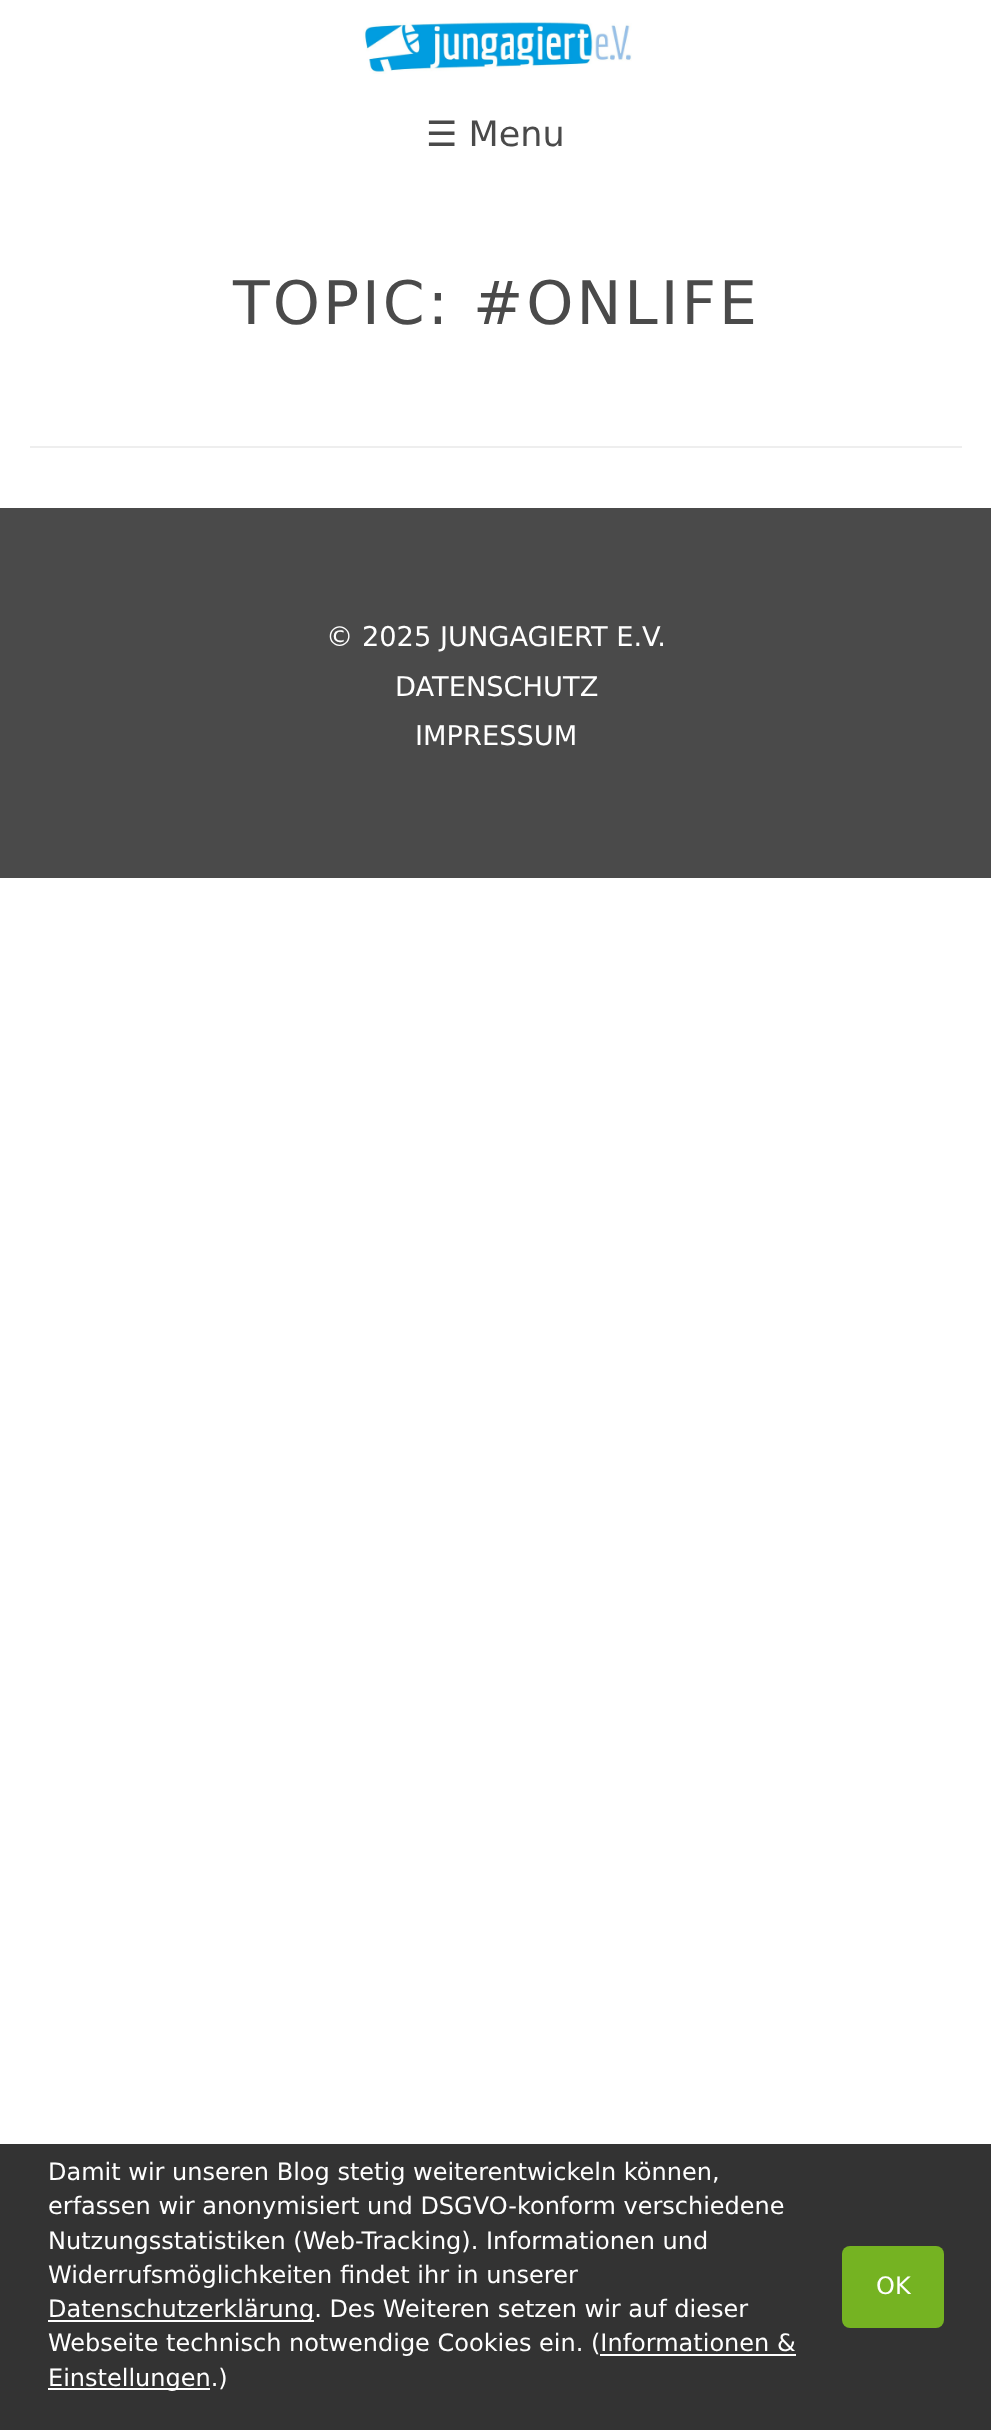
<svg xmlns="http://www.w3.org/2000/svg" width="991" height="2430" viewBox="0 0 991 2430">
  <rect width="100%" height="100%" fill="#ffffff"/>
  <image x="363" y="20" width="269" height="54" href="img1.png"/>
  <text x="426" y="146" font-family="DejaVu Sans" font-size="35" fill="#4a4a4a">☰ Menu</text>
  <rect x="30" y="446" width="932" height="2" fill="#eeeeee"/>
  <text x="233" y="324" font-family="DejaVu Sans" font-size="60" letter-spacing="3" fill="#4a4a4a">TOPIC: #ONLIFE</text>
  <rect x="0" y="508" width="991" height="370" fill="#4a4a4a"/>
  <text x="326" y="646" font-family="DejaVu Sans" font-size="27.25" fill="#ffffff">© 2025 JUNGAGIERT E.V.</text>
  <text x="395" y="696" font-family="DejaVu Sans" font-size="27.25" fill="#ffffff">DATENSCHUTZ</text>
  <text x="415" y="745" font-family="DejaVu Sans" font-size="27.25" fill="#ffffff">IMPRESSUM</text>
  <rect x="0" y="2144" width="991" height="286" fill="#333333"/>
  <text x="48" y="2180" font-family="DejaVu Sans" font-size="24" fill="#ffffff">Damit wir unseren Blog stetig weiterentwickeln können,</text>
  <text x="48" y="2214" font-family="DejaVu Sans" font-size="24" fill="#ffffff">erfassen wir anonymisiert und DSGVO-konform verschiedene</text>
  <text x="48" y="2249" font-family="DejaVu Sans" font-size="24" fill="#ffffff">Nutzungsstatistiken (Web-Tracking). Informationen und</text>
  <text x="48" y="2283" font-family="DejaVu Sans" font-size="24" fill="#ffffff">Widerrufsmöglichkeiten findet ihr in unserer</text>
  <rect x="48" y="2320" width="266" height="2" fill="#ffffff"/>
  <text x="48" y="2317" font-family="DejaVu Sans" font-size="24" fill="#ffffff">Datenschutzerklärung. Des Weiteren setzen wir auf dieser</text>
  <text x="48" y="2351" font-family="DejaVu Sans" font-size="24" fill="#ffffff">Webseite technisch notwendige Cookies ein. (Informationen &amp;</text>
  <rect x="48" y="2388" width="162" height="2" fill="#ffffff"/>
  <text x="48" y="2386" font-family="DejaVu Sans" font-size="24" fill="#ffffff">Einstellungen.)</text>
  <rect x="600" y="2354" width="196" height="2" fill="#ffffff"/>
  <rect x="842" y="2246" width="102" height="82" rx="8" fill="#75b322"/>
  <text x="876" y="2294" font-family="DejaVu Sans" font-size="24" fill="#ffffff">OK</text>
</svg>
